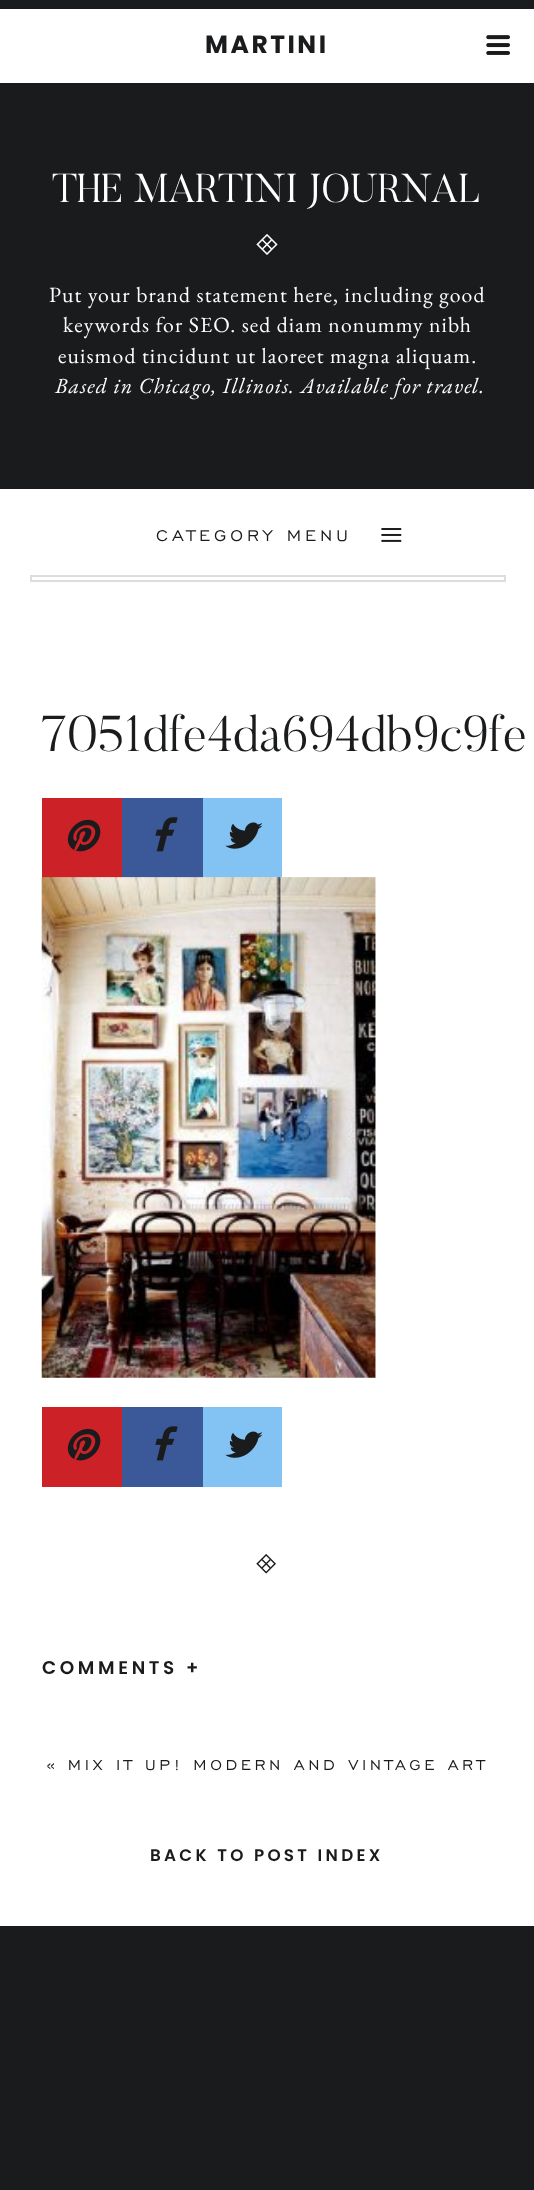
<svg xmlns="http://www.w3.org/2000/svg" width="534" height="2190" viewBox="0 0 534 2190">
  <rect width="100%" height="100%" fill="#ffffff"/>
  <rect x="0" y="0" width="534" height="9" fill="#1a1b1d"/>
  <text x="205" y="53" font-family="Poppins" font-size="25" font-weight="bold" letter-spacing="2.5" fill="#1a1b1d">MARTINI</text>
  <image x="486" y="35" width="24" height="20" href="img1.png"/>
  <rect x="0" y="83" width="534" height="406" fill="#1a1b1d"/>
  <text x="52" y="202" font-family="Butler" font-size="40" font-weight="300" fill="#ffffff">THE MARTINI JOURNAL</text>
  <image x="256" y="234" width="22" height="21" href="img2.png"/>
  <text x="49" y="302" font-family="EB Garamond" font-size="21.7" letter-spacing="1.1" fill="#ffffff">Put your brand statement here, including good</text>
  <text x="63" y="332" font-family="EB Garamond" font-size="21.7" letter-spacing="1.1" fill="#ffffff">keywords for SEO. sed diam nonummy nibh</text>
  <text x="58" y="363" font-family="EB Garamond" font-size="21.7" letter-spacing="1.1" fill="#ffffff">euismod tincidunt ut laoreet magna aliquam.</text>
  <text x="55" y="393" font-family="EB Garamond" font-size="21.7" font-style="italic" letter-spacing="1.1" fill="#ffffff">Based in Chicago, Illinois. Available for travel.</text>
  <text x="156" y="541" font-family="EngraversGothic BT" font-size="20" letter-spacing="4" fill="#1a1b1d">CATEGORY MENU</text>
  <image x="381" y="528" width="21" height="14" href="img3.png"/>
  <rect x="31" y="576" width="474" height="5" fill="none" stroke="#dddddd" stroke-width="2"/>
  <text x="40" y="751" font-family="Butler" font-size="50" font-weight="300" fill="#1a1b1d">7051dfe4da694db9c9fe</text>
  <rect x="42" y="798" width="80" height="80" fill="#cc2127"/>
  <image x="67" y="819" width="34" height="33" href="img4.png"/>
  <rect x="122" y="798" width="81" height="80" fill="#3b5998"/>
  <image x="155" y="817" width="23" height="35" href="img5.png"/>
  <rect x="203" y="798" width="79" height="80" fill="#83c3f3"/>
  <image x="225" y="822" width="38" height="27" href="img6.png"/>
  <image x="41" y="877" width="335" height="501" href="img7.png"/>
  <rect x="42" y="1407" width="80" height="80" fill="#cc2127"/>
  <image x="67" y="1428" width="34" height="33" href="img8.png"/>
  <rect x="122" y="1407" width="81" height="80" fill="#3b5998"/>
  <image x="155" y="1426" width="23" height="35" href="img9.png"/>
  <rect x="203" y="1407" width="79" height="80" fill="#83c3f3"/>
  <image x="225" y="1431" width="38" height="27" href="img10.png"/>
  <image x="256" y="1554" width="20" height="20" href="img11.png"/>
  <text x="42" y="1674" font-family="Poppins" font-size="18.4" font-weight="600" letter-spacing="3.65" fill="#1a1b1d">COMMENTS +</text>
  <text x="47" y="1770" font-family="EngraversGothic BT" font-size="18.4" letter-spacing="3.65" fill="#1a1b1d">« MIX IT UP! MODERN AND VINTAGE ART</text>
  <text x="150" y="1861" font-family="Poppins" font-size="16.75" font-weight="600" letter-spacing="3.3" fill="#1a1b1d">BACK TO POST INDEX</text>
  <rect x="0" y="1926" width="534" height="264" fill="#1a1b1d"/>
</svg>
